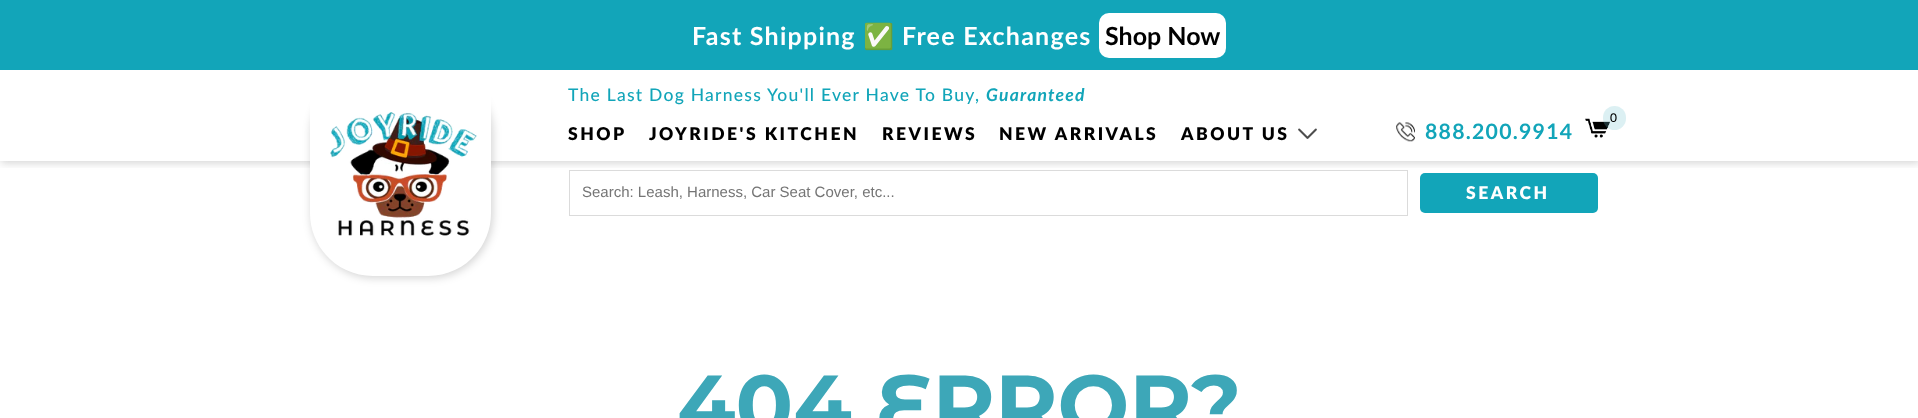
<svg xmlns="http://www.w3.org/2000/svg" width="1918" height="418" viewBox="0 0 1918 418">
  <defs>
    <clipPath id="clip1"><rect x="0" y="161" width="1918" height="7"/></clipPath>
    <filter id="blur1" x="-50%" y="-200%" width="200%" height="500%"><feGaussianBlur stdDeviation="4.5"/></filter>
  </defs>
  <rect width="100%" height="100%" fill="#ffffff"/>
  <g clip-path="url(#clip1)">
    <rect x="1" y="71" width="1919" height="92" fill="#000000" fill-opacity="0.17" filter="url(#blur1)"/>
  </g>
  <rect x="311" y="71" width="182" height="207" rx="63" fill="#000000" fill-opacity="0.17" filter="url(#blur1)"/>
  <rect x="0" y="0" width="1918" height="70" fill="#12a5b9"/>
  <text x="692" y="45" font-family="Lato" font-size="25" font-weight="bold" letter-spacing="1.25" fill="#ffffff">Fast Shipping</text>
  <text x="863" y="45" font-family="Noto Color Emoji" font-size="25" font-weight="bold" letter-spacing="1.25" fill="#ffffff">✅</text>
  <text x="902" y="45" font-family="Lato" font-size="25" font-weight="bold" letter-spacing="1.25" fill="#ffffff">Free Exchanges</text>
  <rect x="1099" y="13" width="127" height="45" rx="10" fill="#ffffff"/>
  <text x="1105" y="45" font-family="Lato" font-size="25" font-weight="bold" fill="#000000">Shop Now</text>
  <path d="M310 70H491V213C491 248 463 276 428 276H373C338 276 310 248 310 213Z" fill="#ffffff"/>
  <image x="330" y="112" width="147" height="124" href="img1.png"/>
  <text x="568" y="101" font-family="Lato" font-size="17.5" font-weight="500" letter-spacing="1.25" fill="#12a5b9">The Last Dog Harness You'll Ever Have To Buy,</text>
  <text x="986" y="101" font-family="Lato" font-size="17.5" font-weight="bold" font-style="italic" letter-spacing="1.25" fill="#12a5b9">Guaranteed</text>
  <text x="568" y="140" font-family="Lato" font-size="17.5" font-weight="800" letter-spacing="2.5" fill="#000000">SHOP</text>
  <text x="649" y="140" font-family="Lato" font-size="17.5" font-weight="800" letter-spacing="2.5" fill="#000000">JOYRIDE'S KITCHEN</text>
  <text x="882" y="140" font-family="Lato" font-size="17.5" font-weight="800" letter-spacing="2.5" fill="#000000">REVIEWS</text>
  <text x="999" y="140" font-family="Lato" font-size="17.5" font-weight="800" letter-spacing="2.5" fill="#000000">NEW ARRIVALS</text>
  <text x="1181" y="140" font-family="Lato" font-size="17.5" font-weight="800" letter-spacing="2.5" fill="#000000">ABOUT US</text>
  <image x="1298" y="128" width="19" height="11" href="img2.png"/>
  <image x="1585" y="118" width="25" height="20" href="img3.png"/>
  <rect x="1603" y="106" width="23" height="24" rx="11.5" fill="#72c3d0" fill-opacity="0.25"/>
  <text x="1610" y="122" font-family="Lato" font-size="12" font-weight="500" fill="#000000">0</text>
  <image x="1396" y="122" width="19" height="20" href="img4.png"/>
  <text x="1425" y="139" font-family="Lato" font-size="21.25" font-weight="bold" letter-spacing="1.25" fill="#12a5b9">888.200.9914</text>
  <rect x="569.5" y="170.5" width="838" height="45" fill="none" stroke="#dbdbdb"/>
  <text x="582" y="197" font-family="Liberation Sans" font-size="15" fill="#757575">Search: Leash, Harness, Car Seat Cover, etc...</text>
  <rect x="1420" y="173" width="178" height="40" rx="5" fill="#12a5b9"/>
  <text x="1466" y="199" font-family="Lato" font-size="17.5" font-weight="800" letter-spacing="2.5" fill="#ffffff">SEARCH</text>
  <text x="677" y="435" font-family="Montserrat Alternates" font-size="85" font-weight="bold" fill="#3da7b8">404 ERROR?</text>
</svg>
